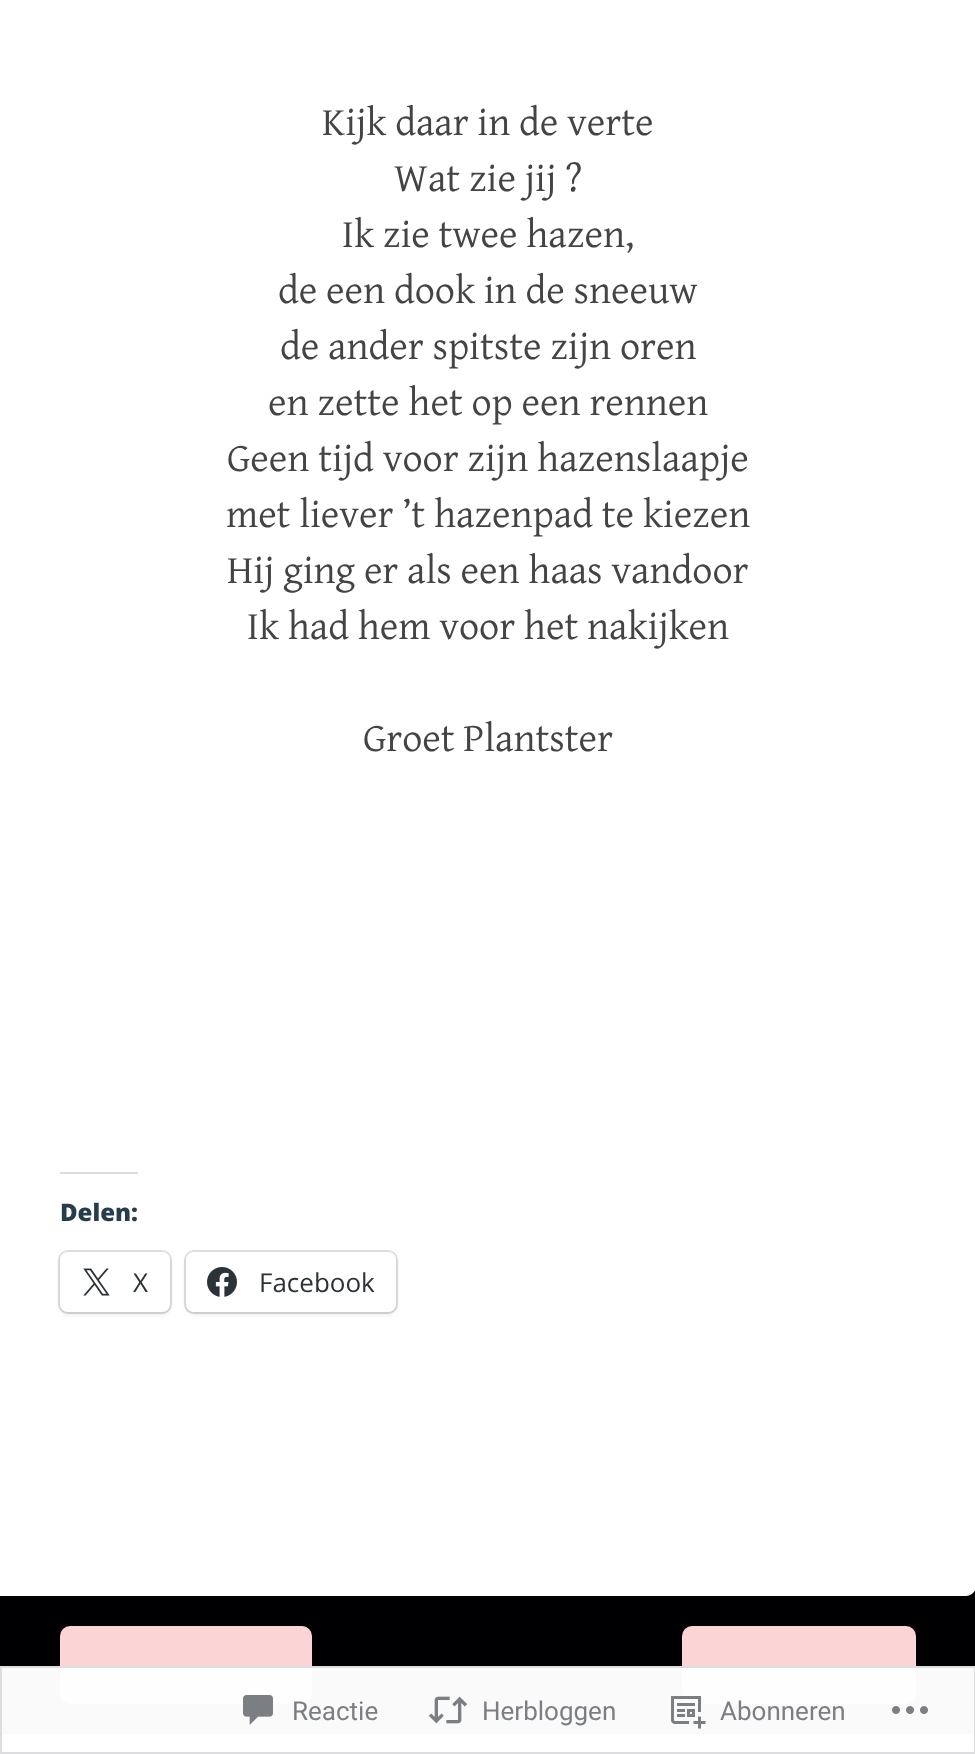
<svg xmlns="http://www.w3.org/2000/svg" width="975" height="1754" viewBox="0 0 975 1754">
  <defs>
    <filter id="blur1" x="-50%" y="-200%" width="200%" height="500%"><feGaussianBlur stdDeviation="2"/></filter>
  </defs>
  <rect width="100%" height="100%" fill="#000002"/>
  <path d="M0-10H966C971.5-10 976-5.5 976 0V1586C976 1591.5 971.5 1596 966 1596H0Z" fill="#ffffff"/>
  <text x="322" y="135" font-family="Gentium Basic" font-size="40" fill="#444444">Kijk daar in de verte</text>
  <text x="394" y="191" font-family="Gentium Basic" font-size="40" fill="#444444">Wat zie jij ?</text>
  <text x="342" y="247" font-family="Gentium Basic" font-size="40" fill="#444444">Ik zie twee hazen,</text>
  <text x="278" y="303" font-family="Gentium Basic" font-size="40" fill="#444444">de een dook in de sneeuw</text>
  <text x="280" y="359" font-family="Gentium Basic" font-size="40" fill="#444444">de ander spitste zijn oren</text>
  <text x="268" y="415" font-family="Gentium Basic" font-size="40" fill="#444444">en zette het op een rennen</text>
  <text x="227" y="471" font-family="Gentium Basic" font-size="40" fill="#444444">Geen tijd voor zijn hazenslaapje</text>
  <text x="226" y="527" font-family="Gentium Basic" font-size="40" fill="#444444">met liever ’t hazenpad te kiezen</text>
  <text x="227" y="583" font-family="Gentium Basic" font-size="40" fill="#444444">Hij ging er als een haas vandoor</text>
  <text x="247" y="639" font-family="Gentium Basic" font-size="40" fill="#444444">Ik had hem voor het nakijken</text>
  <text x="363" y="751" font-family="Gentium Basic" font-size="40" fill="#444444">Groet Plantster</text>
  <rect x="60" y="1172" width="78" height="2" fill="#dcdcde"/>
  <text x="60" y="1221" font-family="Open Sans" font-size="24" font-weight="800" fill="#283d4b">Delen:</text>
  <rect x="59" y="1251" width="112" height="62" rx="9" fill="none" stroke="#e0e0e0" stroke-width="2"/>
  <rect x="60" y="1254" width="110" height="60" rx="8" fill="#000000" fill-opacity="0.12" filter="url(#blur1)"/>
  <rect x="60" y="1252" width="110" height="60" rx="8" fill="#ffffff"/>
  <image x="83" y="1268" width="27" height="28" href="img1.png"/>
  <text x="133" y="1292" font-family="Open Sans" font-size="26" fill="#2c3338">X</text>
  <rect x="185" y="1251" width="212" height="62" rx="9" fill="none" stroke="#e0e0e0" stroke-width="2"/>
  <rect x="186" y="1254" width="210" height="60" rx="8" fill="#000000" fill-opacity="0.12" filter="url(#blur1)"/>
  <rect x="186" y="1252" width="210" height="60" rx="8" fill="#ffffff"/>
  <image x="207" y="1267" width="30" height="30" href="img2.png"/>
  <text x="259" y="1292" font-family="Open Sans" font-size="26" fill="#2c3338">Facebook</text>
  <rect x="60" y="1626" width="252" height="78" rx="10" fill="#fbd4d5"/>
  <rect x="682" y="1626" width="234" height="78" rx="10" fill="#fbd4d5"/>
  <path d="M0 1734H966C971.5 1734 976 1738.5 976 1744V1754C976 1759.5 971.5 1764 966 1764H0Z" fill="#ffffff"/>
  <rect x="0" y="1666" width="975" height="74" fill="#ffffff" fill-opacity="0.98"/>
  <rect x="1" y="1667" width="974" height="86" fill="none" stroke="#dcdcde" stroke-opacity="0.98" stroke-width="2"/>
  <image x="243" y="1695" width="30" height="30" href="img3.png"/>
  <text x="292" y="1720" font-family="Roboto" font-size="26" fill="#7b7f84">Reactie</text>
  <image x="428" y="1696" width="40" height="28" href="img4.png"/>
  <text x="482" y="1720" font-family="Roboto" font-size="26" fill="#7b7f84">Herbloggen</text>
  <image x="671" y="1696" width="35" height="33" href="img5.png"/>
  <text x="720" y="1720" font-family="Roboto" font-size="26" fill="#7b7f84">Abonneren</text>
  <image x="892" y="1706" width="36" height="8" href="img6.png"/>
</svg>
